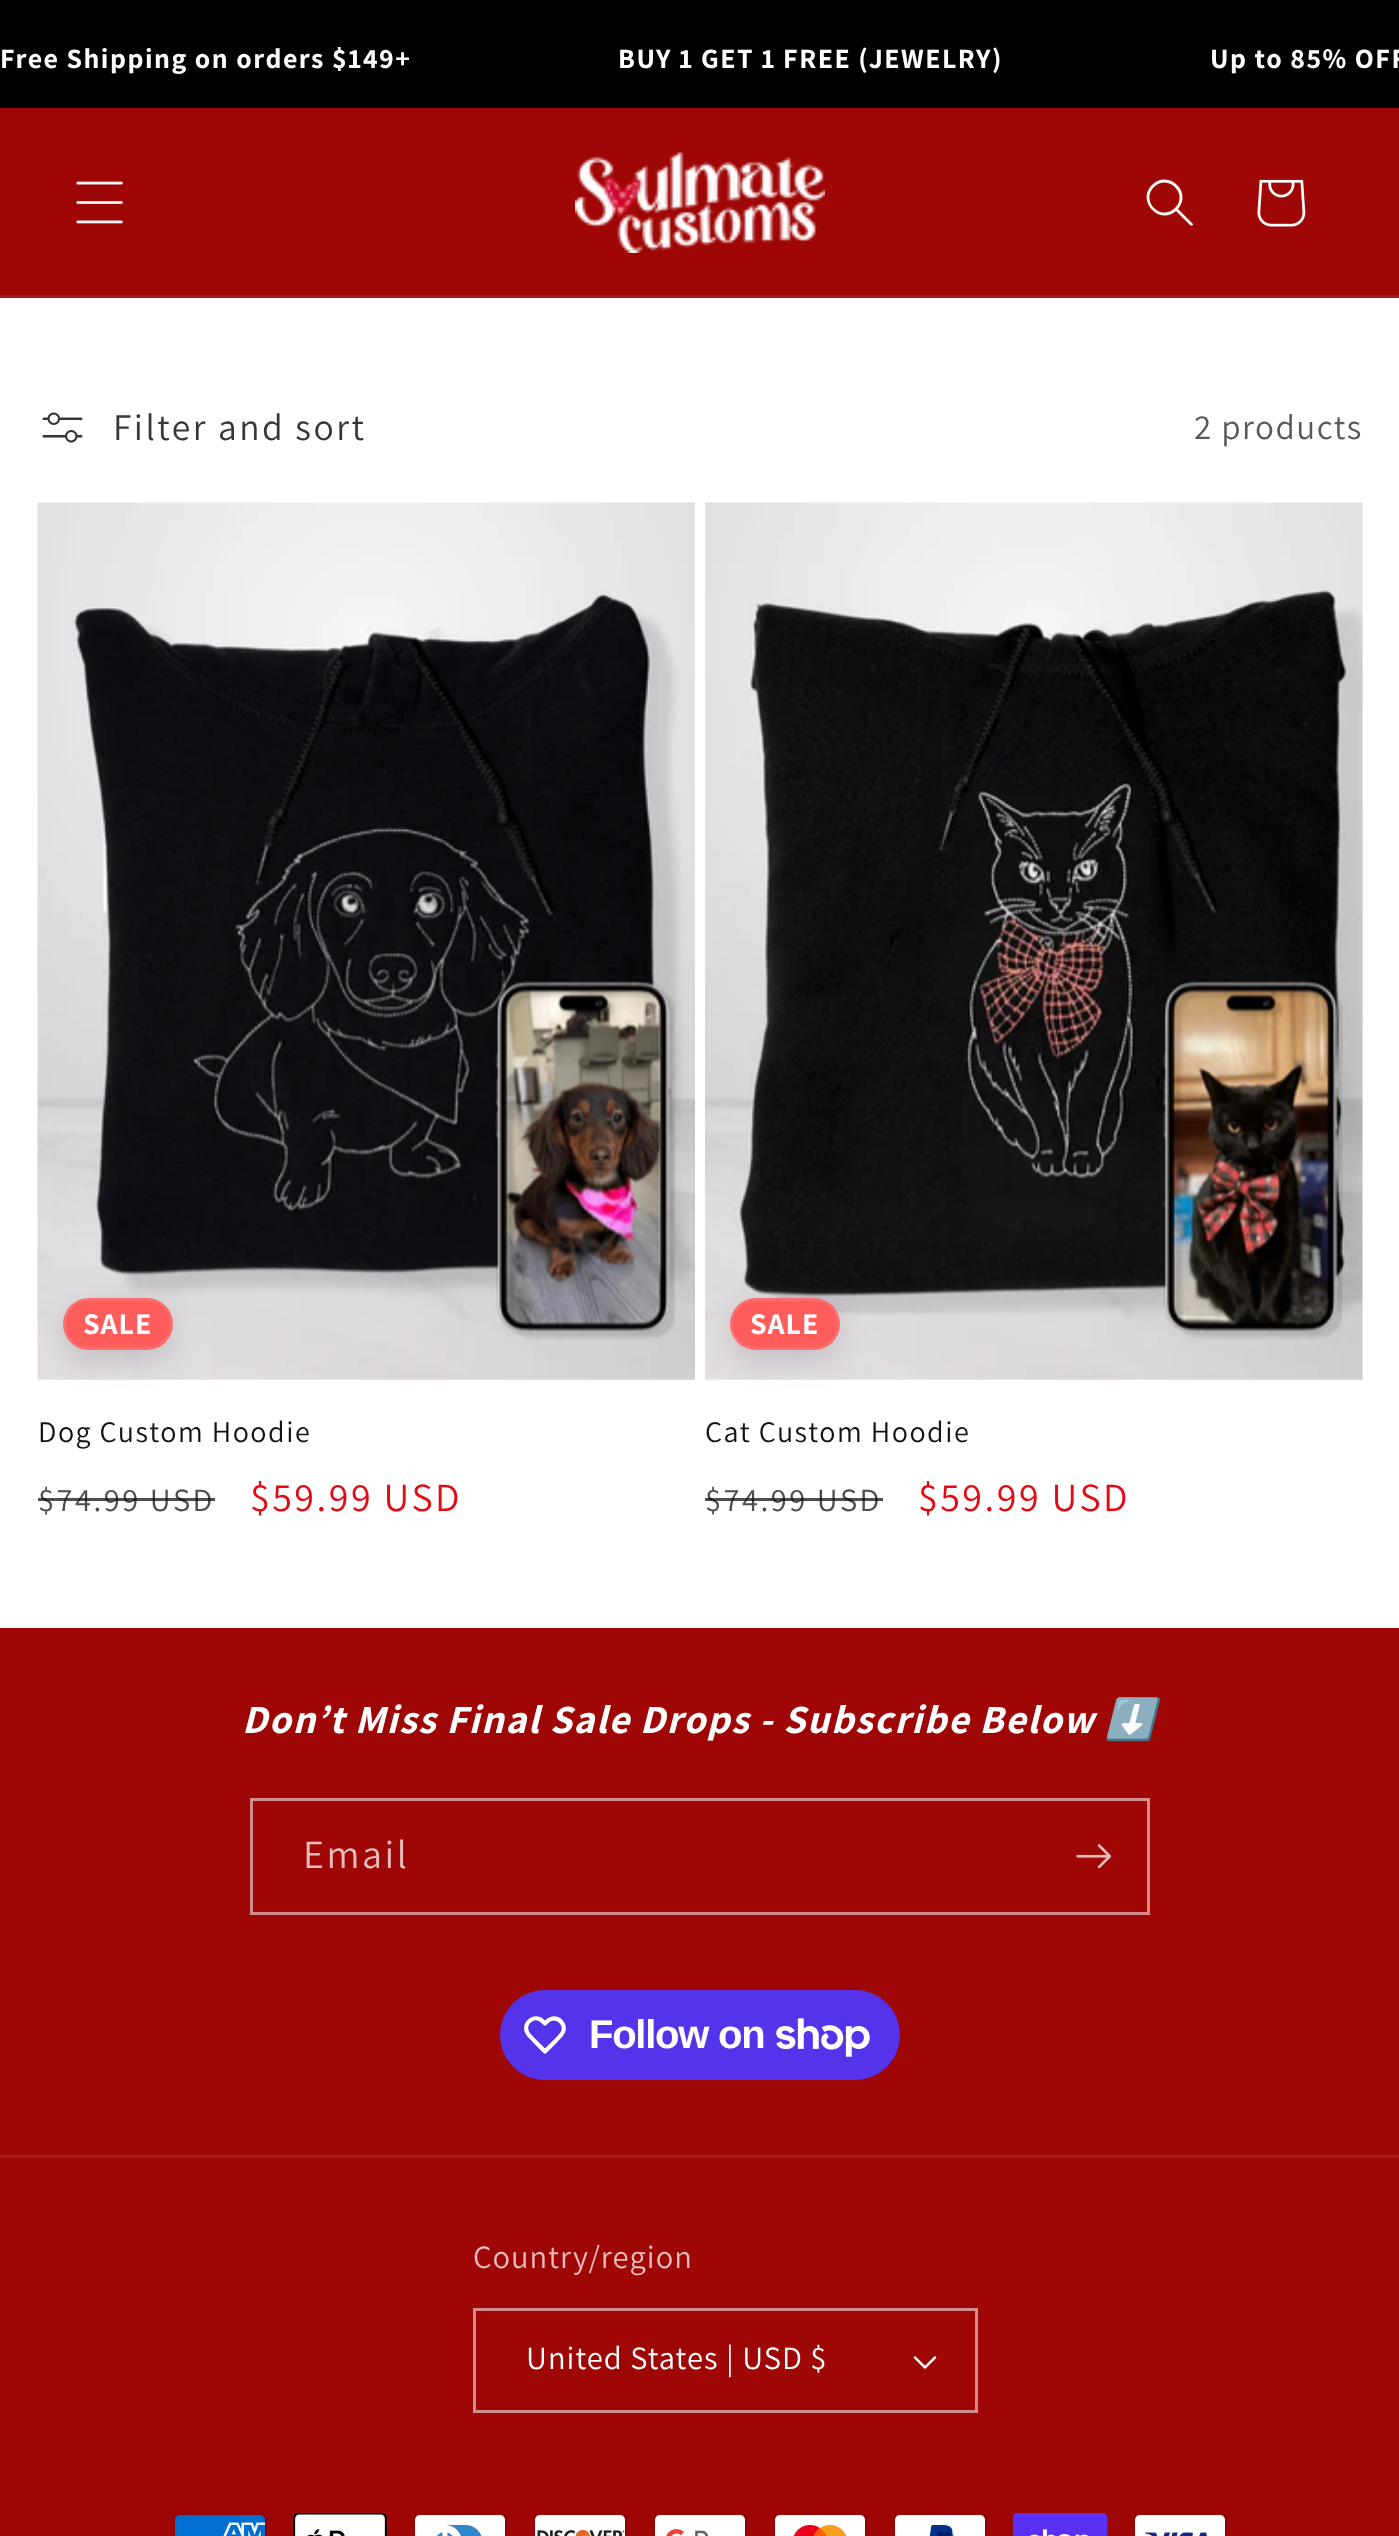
<svg xmlns="http://www.w3.org/2000/svg" width="1399" height="2536" viewBox="0 0 1399 2536">
  <defs>
    <filter id="blur1" x="-50%" y="-200%" width="200%" height="500%"><feGaussianBlur stdDeviation="15"/></filter>
  </defs>
  <rect width="100%" height="100%" fill="#ffffff"/>
  <rect x="0" y="0" width="1399" height="108" fill="#000000"/>
  <text x="0" y="68" font-family="Assistant" font-size="28" font-weight="bold" letter-spacing="1.5" fill="#ffffff">Free Shipping on orders $149+</text>
  <text x="618" y="68" font-family="Assistant" font-size="28" font-weight="bold" letter-spacing="1.5" fill="#ffffff">BUY 1 GET 1 FREE (JEWELRY)</text>
  <text x="1210" y="68" font-family="Assistant" font-size="28" font-weight="bold" letter-spacing="1.5" fill="#ffffff">Up to 85% OFF</text>
  <rect x="0" y="108" width="1399" height="187" fill="#9f0606"/>
  <rect x="0" y="295" width="1399" height="3" fill="#a71a1a"/>
  <image x="76" y="181" width="47" height="43" href="img1.png"/>
  <image x="575" y="151" width="250" height="102" href="img2.png"/>
  <path d="M1175 208C1161 222 1140 201 1154 187C1168 173 1189 194 1175 208M1176 211C1159 226 1136 200 1152 185C1168 169 1193 192 1178 209L1193 224C1193 226 1191 226 1190 225Z" fill="#fffafa" fill-rule="evenodd"/>
  <image x="1257" y="179" width="49" height="48" href="img3.png"/>
  <image x="42" y="412" width="41" height="31" href="img4.png"/>
  <text x="113" y="440" font-family="Assistant" font-size="37.5" letter-spacing="2.5" fill="#363636">Filter and sort</text>
  <text x="1194" y="439" font-family="Assistant" font-size="35" letter-spacing="1.5" fill="#595959">2 products</text>
  <rect x="38" y="1378" width="657" height="2" fill="#f3f3f3"/>
  <image x="37" y="502" width="658" height="878" href="img5.png"/>
  <rect x="63" y="1308" width="110" height="52" rx="26" fill="#000000" fill-opacity="0.15" filter="url(#blur1)"/>
  <rect x="63" y="1298" width="110" height="52" rx="26" fill="#ff5c5c"/>
  <rect x="64.5" y="1299.5" width="107" height="49" rx="24.5" fill="none" stroke="#ffffff" stroke-opacity="0.1" stroke-width="3"/>
  <text x="83" y="1334" font-family="Assistant" font-size="30" font-weight="bold" letter-spacing="1" fill="#ffffff">SALE</text>
  <text x="38" y="1442" font-family="Assistant" font-size="30" letter-spacing="1.5" fill="#121212">Dog Custom Hoodie</text>
  <text x="38" y="1511" font-family="Assistant" font-size="32.5" letter-spacing="2.5" fill="#4d4d4d">$74.99 USD</text>
  <rect x="38" y="1498" width="177" height="3" fill="#121212" fill-opacity="0.75"/>
  <text x="250" y="1511" font-family="Assistant" font-size="40" letter-spacing="2.5" fill="#e30b13">$59.99 USD</text>
  <rect x="705" y="503" width="658" height="877" fill="#f3f3f3"/>
  <image x="705" y="502" width="658" height="878" href="img6.png"/>
  <rect x="730" y="1308" width="110" height="52" rx="26" fill="#000000" fill-opacity="0.15" filter="url(#blur1)"/>
  <rect x="730" y="1298" width="110" height="52" rx="26" fill="#ff5c5c"/>
  <rect x="731.5" y="1299.5" width="107" height="49" rx="24.5" fill="none" stroke="#ffffff" stroke-opacity="0.1" stroke-width="3"/>
  <text x="750" y="1334" font-family="Assistant" font-size="30" font-weight="bold" letter-spacing="1" fill="#ffffff">SALE</text>
  <text x="705" y="1442" font-family="Assistant" font-size="30" letter-spacing="1.5" fill="#121212">Cat Custom Hoodie</text>
  <text x="705" y="1511" font-family="Assistant" font-size="32.5" letter-spacing="2.5" fill="#4d4d4d">$74.99 USD</text>
  <rect x="705" y="1498" width="178" height="3" fill="#121212" fill-opacity="0.75"/>
  <text x="918" y="1511" font-family="Assistant" font-size="40" letter-spacing="2.5" fill="#e30b13">$59.99 USD</text>
  <rect x="0" y="1628" width="1399" height="908" fill="#9f0606"/>
  <text x="242" y="1733" word-spacing="-0.25" font-family="Assistant" font-size="40" font-weight="bold" font-style="italic" letter-spacing="1.5" fill="#ffffff">Don’t Miss Final Sale Drops - Subscribe Below</text>
  <text x="1105" y="1733" font-family="Noto Color Emoji" font-size="40" font-weight="bold" font-style="italic" letter-spacing="1.5" fill="#ffffff">⬇️</text>
  <rect x="251.5" y="1799.5" width="897" height="114" fill="none" stroke="#d48c8c" stroke-width="3"/>
  <text x="303" y="1868" font-family="Assistant" font-size="40" letter-spacing="2.5" fill="#e7bdbd">Email</text>
  <image x="1076" y="1844" width="36" height="25" href="img7.png"/>
  <rect x="500" y="1990" width="400" height="90" rx="45" fill="#5433eb"/>
  <path d="M543 2021.5L545 2023.5C547 2021.5 548.5 2019.5 551 2019C559 2016.5 566 2024.5 563 2032C561.5 2035.5 558 2038 555.5 2041L545 2051.5L534.5 2041C532 2038 528.5 2035.5 527 2032C523 2022 535.5 2013.5 543 2021.5Z" fill="none" stroke="#ffffff" stroke-width="4.2" stroke-linejoin="round"/>
  <text x="589" y="2048" font-family="Liberation Sans" font-size="40" font-weight="bold" letter-spacing="-1.25" fill="#ffffff">Follow on</text>
  <image x="776" y="2018" width="94" height="39" href="img8.png"/>
  <rect x="0" y="2155" width="1399" height="3" fill="#a71a1a"/>
  <text x="473" y="2268" font-family="Assistant" font-size="32.5" letter-spacing="1" fill="#e7bdbd">Country/region</text>
  <image x="913" y="2356" width="24" height="13" href="img9.png"/>
  <rect x="474.5" y="2309.5" width="502" height="102" fill="none" stroke="#d48c8c" stroke-width="3"/>
  <text x="526" y="2369" font-family="Assistant" font-size="32.5" letter-spacing="1" fill="#ffffff">United States | USD $</text>
  <image x="173" y="2513" width="95" height="23" href="img10.png"/>
  <image x="293" y="2513" width="94" height="23" href="img11.png"/>
  <image x="413" y="2513" width="95" height="23" href="img12.png"/>
  <image x="533" y="2513" width="95" height="23" href="img13.png"/>
  <image x="653" y="2513" width="95" height="23" href="img14.png"/>
  <image x="773" y="2513" width="95" height="23" href="img15.png"/>
  <image x="893" y="2513" width="95" height="23" href="img16.png"/>
  <image x="1013" y="2513" width="95" height="23" href="img17.png"/>
  <image x="1133" y="2513" width="95" height="23" href="img18.png"/>
</svg>
